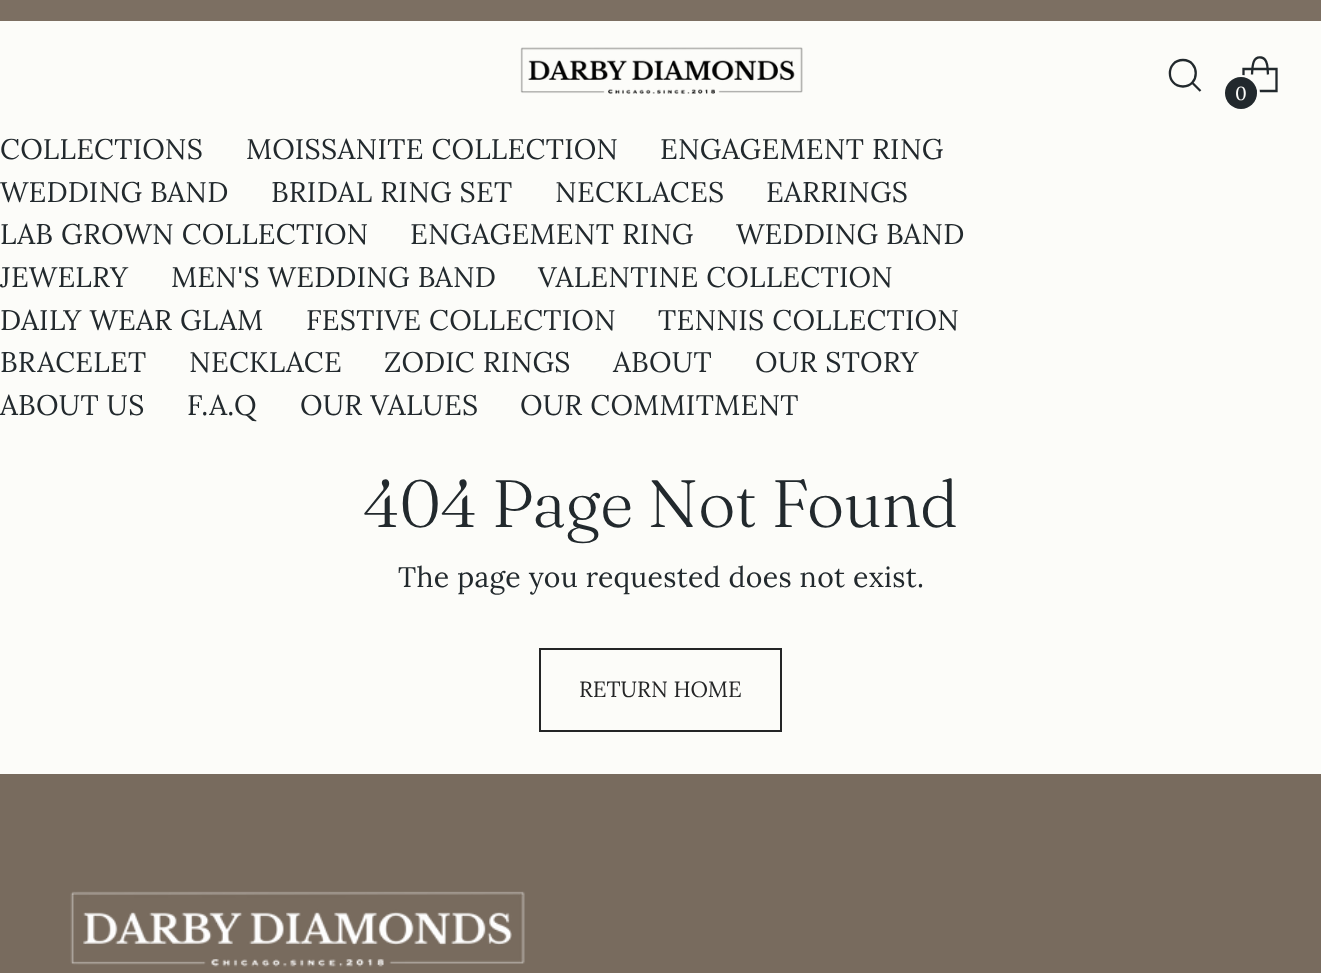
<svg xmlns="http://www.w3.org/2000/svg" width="1321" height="973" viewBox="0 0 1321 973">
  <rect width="100%" height="100%" fill="#fcfcf9"/>
  <rect x="0" y="0" width="1321" height="21" fill="#7c6f62"/>
  <image x="520" y="47" width="283" height="47" href="img1.png"/>
  <path d="M1183 86.5C1200 86.5 1200 60 1183 60C1165.5 60 1165.5 86.5 1183 86.5Z" fill="none" stroke="#22292d" stroke-width="2.3" stroke-linecap="round"/>
  <path d="M1192.5 83L1200.5 91" fill="none" stroke="#22292d" stroke-width="2.3"/>
  <path d="M1268 74.5C1267.5 70.5 1268 66 1266.5 62.5C1265.5 60 1264 58 1261.5 57.5C1252 55.5 1252.5 68 1252 74.5" fill="none" stroke="#22292d" stroke-width="2.3" stroke-linejoin="bevel"/>
  <path d="M1276.5 91V69H1243.5V91Z" fill="none" stroke="#22292d" stroke-width="2.3"/>
  <circle cx="1241.5" cy="93.5" r="17" fill="none" stroke="#fcfcf9" stroke-width="3"/>
  <circle cx="1241" cy="93" r="16" fill="#22292d"/>
  <text x="1235" y="100" font-family="Lora" font-size="19" letter-spacing="0.3" fill="#fcfcf9">0</text>
  <text x="0" y="159" font-family="Lora" font-size="28.4" letter-spacing="0.3" fill="#22292d">COLLECTIONS</text>
  <text x="246" y="159" font-family="Lora" font-size="28.4" letter-spacing="0.3" fill="#22292d">MOISSANITE COLLECTION</text>
  <text x="660" y="159" font-family="Lora" font-size="28.4" letter-spacing="0.3" fill="#22292d">ENGAGEMENT RING</text>
  <text x="0" y="202" font-family="Lora" font-size="28.4" letter-spacing="0.3" fill="#22292d">WEDDING BAND</text>
  <text x="271" y="202" font-family="Lora" font-size="28.4" letter-spacing="0.3" fill="#22292d">BRIDAL RING SET</text>
  <text x="555" y="202" font-family="Lora" font-size="28.4" letter-spacing="0.3" fill="#22292d">NECKLACES</text>
  <text x="766" y="202" font-family="Lora" font-size="28.4" letter-spacing="0.3" fill="#22292d">EARRINGS</text>
  <text x="0" y="244" font-family="Lora" font-size="28.4" letter-spacing="0.3" fill="#22292d">LAB GROWN COLLECTION</text>
  <text x="410" y="244" font-family="Lora" font-size="28.4" letter-spacing="0.3" fill="#22292d">ENGAGEMENT RING</text>
  <text x="736" y="244" font-family="Lora" font-size="28.4" letter-spacing="0.3" fill="#22292d">WEDDING BAND</text>
  <text x="0" y="287" font-family="Lora" font-size="28.4" letter-spacing="0.3" fill="#22292d">JEWELRY</text>
  <text x="171" y="287" font-family="Lora" font-size="28.4" letter-spacing="0.3" fill="#22292d">MEN'S WEDDING BAND</text>
  <text x="538" y="287" font-family="Lora" font-size="28.4" letter-spacing="0.3" fill="#22292d">VALENTINE COLLECTION</text>
  <text x="0" y="330" font-family="Lora" font-size="28.4" letter-spacing="0.3" fill="#22292d">DAILY WEAR GLAM</text>
  <text x="306" y="330" font-family="Lora" font-size="28.4" letter-spacing="0.3" fill="#22292d">FESTIVE COLLECTION</text>
  <text x="658" y="330" font-family="Lora" font-size="28.4" letter-spacing="0.3" fill="#22292d">TENNIS COLLECTION</text>
  <text x="0" y="372" font-family="Lora" font-size="28.4" letter-spacing="0.3" fill="#22292d">BRACELET</text>
  <text x="189" y="372" font-family="Lora" font-size="28.4" letter-spacing="0.3" fill="#22292d">NECKLACE</text>
  <text x="384" y="372" font-family="Lora" font-size="28.4" letter-spacing="0.3" fill="#22292d">ZODIC RINGS</text>
  <text x="613" y="372" font-family="Lora" font-size="28.4" letter-spacing="0.3" fill="#22292d">ABOUT</text>
  <text x="755" y="372" font-family="Lora" font-size="28.4" letter-spacing="0.3" fill="#22292d">OUR STORY</text>
  <text x="0" y="415" font-family="Lora" font-size="28.4" letter-spacing="0.3" fill="#22292d">ABOUT US</text>
  <text x="187" y="415" font-family="Lora" font-size="28.4" letter-spacing="0.3" fill="#22292d">F.A.Q</text>
  <text x="300" y="415" font-family="Lora" font-size="28.4" letter-spacing="0.3" fill="#22292d">OUR VALUES</text>
  <text x="520" y="415" font-family="Lora" font-size="28.4" letter-spacing="0.3" fill="#22292d">OUR COMMITMENT</text>
  <text x="363" y="527" font-family="Fraunces" font-size="66.75" font-weight="300" letter-spacing="-0.3" fill="#22292d">404 Page Not Found</text>
  <text x="398" y="587" font-family="Lora" font-size="28.4" letter-spacing="0.3" fill="#22292d">The page you requested does not exist.</text>
  <rect x="540" y="649" width="241" height="82" fill="none" stroke="#242526" stroke-width="2"/>
  <text x="579" y="697" font-family="Lora" font-size="22" fill="#242526">RETURN HOME</text>
  <rect x="0" y="774" width="1321" height="199" fill="#786b5e"/>
  <image x="70" y="891" width="455" height="76" href="img2.png"/>
</svg>
